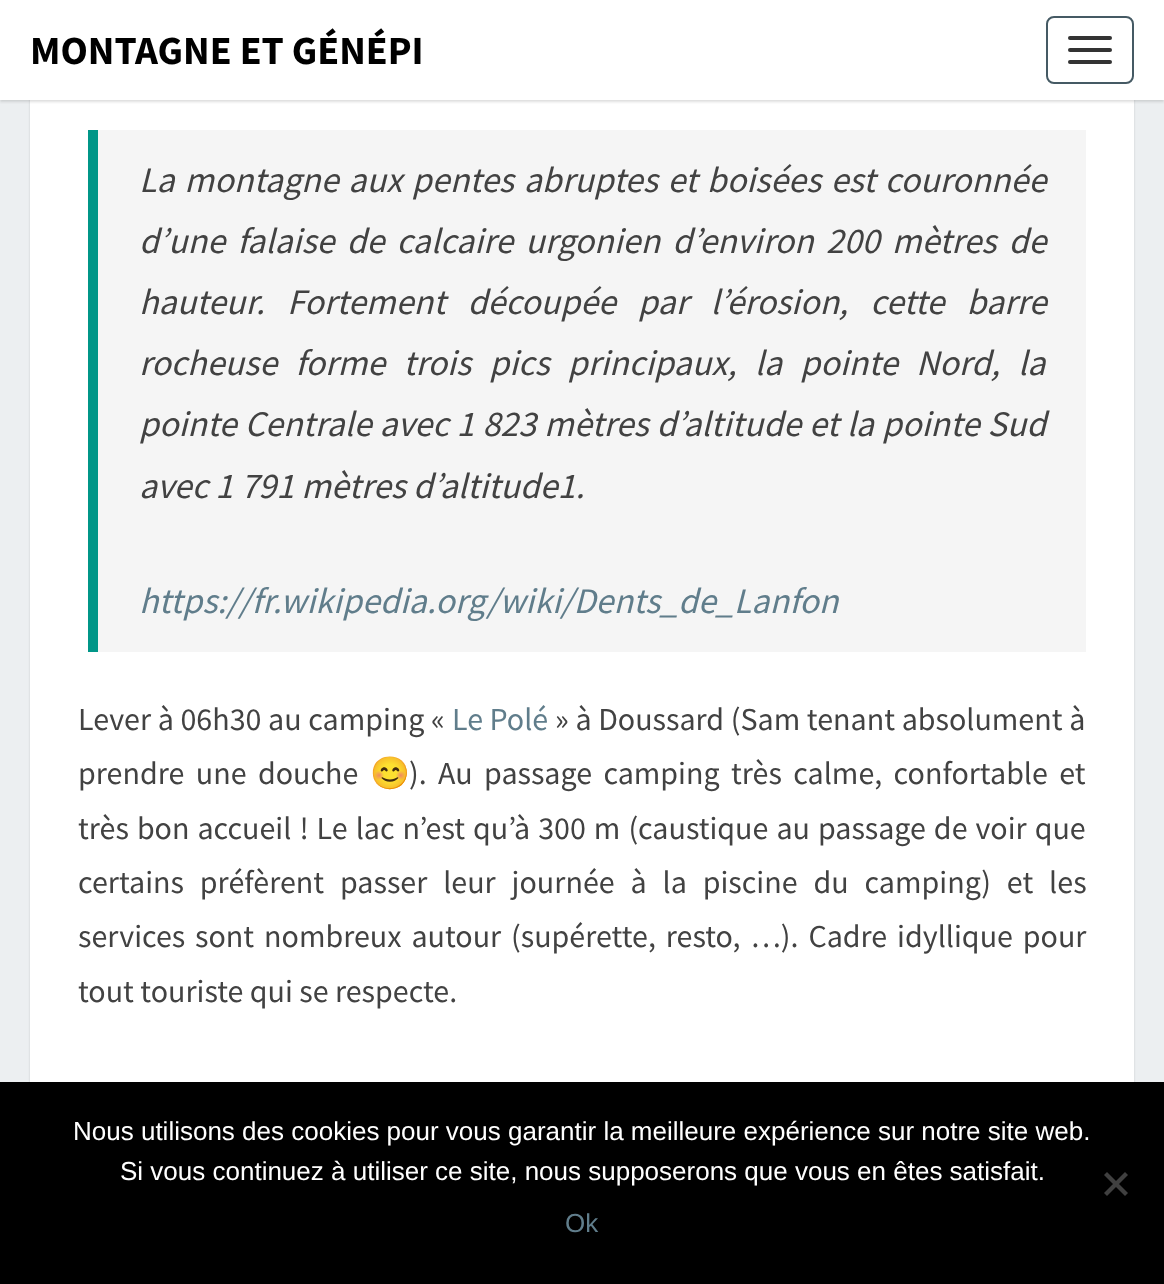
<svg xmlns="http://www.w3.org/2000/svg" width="1164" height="1284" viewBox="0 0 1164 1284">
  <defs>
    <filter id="blur1" x="-50%" y="-200%" width="200%" height="500%"><feGaussianBlur stdDeviation="1"/></filter>
  </defs>
  <rect width="100%" height="100%" fill="#eceff1"/>
  <rect x="30" y="-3" width="1104" height="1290" fill="#000000" fill-opacity="0.15" filter="url(#blur1)"/>
  <rect x="30" y="100" width="1104" height="982" fill="#ffffff"/>
  <rect x="0" y="2" width="1164" height="100" fill="#646464" fill-opacity="0.2" filter="url(#blur1)"/>
  <rect x="0" y="0" width="1164" height="100" fill="#ffffff"/>
  <text x="30" y="64" font-family="Source Sans Pro" font-size="40" font-weight="bold" fill="#000000">MONTAGNE ET GÉNÉPI</text>
  <rect x="1047" y="17" width="86" height="66" rx="7" fill="none" stroke="#455a64" stroke-width="2"/>
  <rect x="1068" y="36" width="44" height="4" rx="2" fill="#333333"/>
  <rect x="1068" y="48" width="44" height="4" rx="2" fill="#333333"/>
  <rect x="1068" y="60" width="44" height="4" rx="2" fill="#333333"/>
  <rect x="98" y="130" width="988" height="522" fill="#f5f5f5"/>
  <rect x="88" y="130" width="10" height="522" fill="#009688"/>
  <text x="139" y="192" word-spacing="2.5" font-family="Source Sans Pro" font-size="36" font-style="italic" fill="#424242">La montagne aux pentes abruptes et boisées est couronnée</text>
  <text x="139" y="253" word-spacing="5" font-family="Source Sans Pro" font-size="36" font-style="italic" fill="#424242">d’une falaise de calcaire urgonien d’environ 200 mètres de</text>
  <text x="139" y="314" word-spacing="15" font-family="Source Sans Pro" font-size="36" font-style="italic" fill="#424242">hauteur. Fortement découpée par l’érosion, cette barre</text>
  <text x="139" y="375" word-spacing="11" font-family="Source Sans Pro" font-size="36" font-style="italic" fill="#424242">rocheuse forme trois pics principaux, la pointe Nord, la</text>
  <text x="139" y="436" word-spacing="0.75" font-family="Source Sans Pro" font-size="36" font-style="italic" fill="#424242">pointe Centrale avec 1 823 mètres d’altitude et la pointe Sud</text>
  <text x="139" y="498" font-family="Source Sans Pro" font-size="36" font-style="italic" fill="#424242">avec 1 791 mètres d’altitude1.</text>
  <text x="139" y="613" font-family="Source Sans Pro" font-size="36" font-style="italic" fill="#607d8b">https://fr.wikipedia.org/wiki/Dents_de_Lanfon</text>
  <text x="78" y="730" word-spacing="0.25" font-family="Source Sans Pro" font-size="32" fill="#424242">Lever à 06h30 au camping «</text>
  <text x="452" y="730" font-family="Source Sans Pro" font-size="32" fill="#607d8b">Le Polé</text>
  <text x="555" y="730" word-spacing="0.25" font-family="Source Sans Pro" font-size="32" fill="#424242">» à Doussard (Sam tenant absolument à</text>
  <text x="78" y="784" word-spacing="5" font-family="Source Sans Pro" font-size="32" fill="#424242">prendre une douche</text>
  <text x="370" y="784" font-family="Noto Color Emoji" font-size="32" fill="#424242">😊</text>
  <text x="409" y="784" word-spacing="5" font-family="Source Sans Pro" font-size="32" fill="#424242">). Au passage camping très calme, confortable et</text>
  <text x="78" y="839" word-spacing="1.6" font-family="Source Sans Pro" font-size="32" fill="#424242">très bon accueil ! Le lac n’est qu’à 300 m (caustique au passage de voir que</text>
  <text x="78" y="893" word-spacing="9.5" font-family="Source Sans Pro" font-size="32" fill="#424242">certains préfèrent passer leur journée à la piscine du camping) et les</text>
  <text x="78" y="947" word-spacing="3.5" font-family="Source Sans Pro" font-size="32" fill="#424242">services sont nombreux autour (supérette, resto, …). Cadre idyllique pour</text>
  <text x="78" y="1002" font-family="Source Sans Pro" font-size="32" fill="#424242">tout touriste qui se respecte.</text>
  <rect x="0" y="1082" width="1164" height="202" fill="#000000"/>
  <text x="73" y="1140" font-family="Liberation Sans" font-size="26" fill="#ffffff">Nous utilisons des cookies pour vous garantir la meilleure expérience sur notre site web.</text>
  <text x="120" y="1180" font-family="Liberation Sans" font-size="26" fill="#ffffff">Si vous continuez à utiliser ce site, nous supposerons que vous en êtes satisfait.</text>
  <path d="M1125 1172L1128 1175L1107 1196L1104 1193Z" fill="#404040"/>
  <path d="M1104 1175L1107 1172L1128 1193L1125 1196Z" fill="#404040"/>
  <text x="565" y="1232" font-family="Liberation Sans" font-size="26" fill="#607d8b">Ok</text>
</svg>
